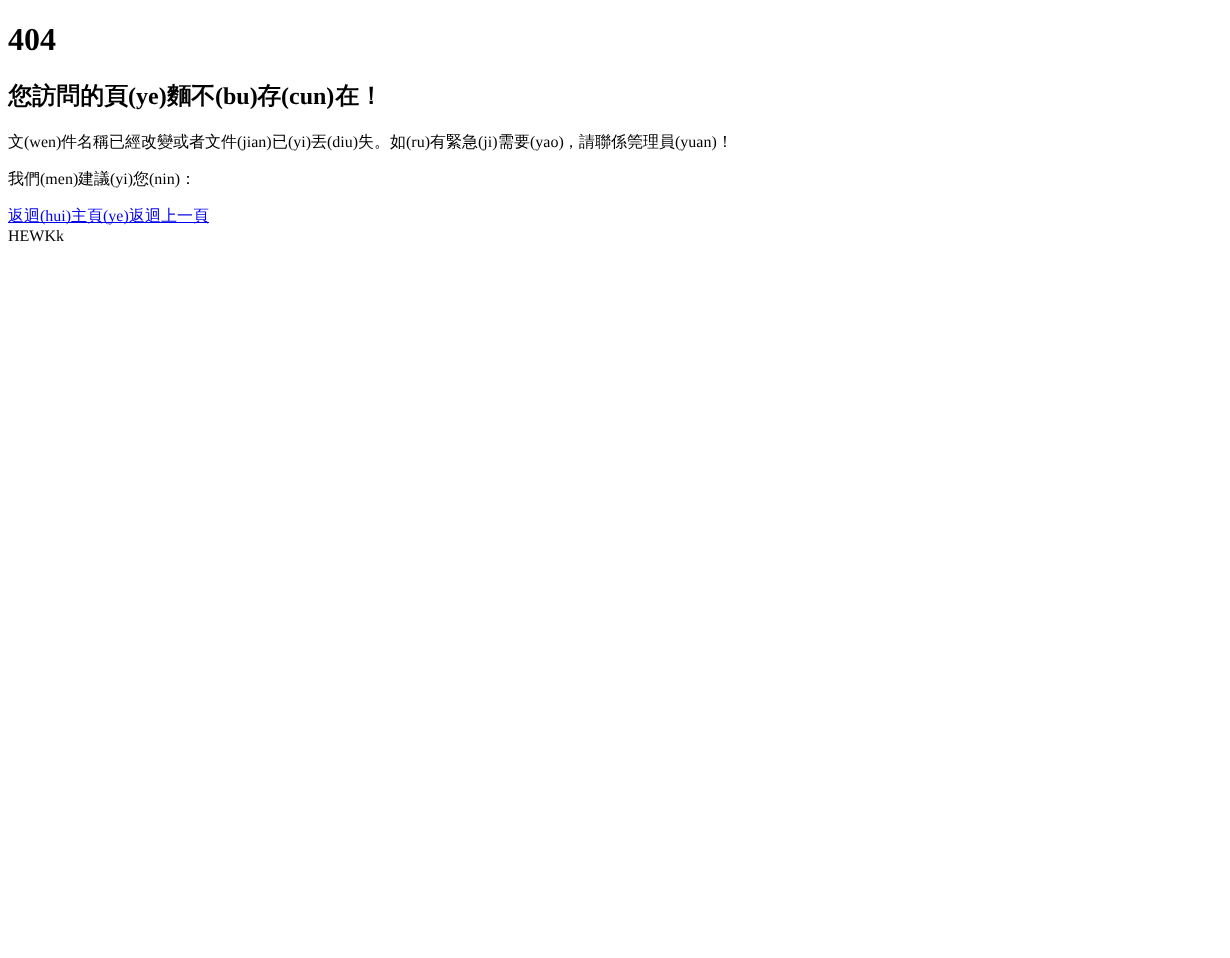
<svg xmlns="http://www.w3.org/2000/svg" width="1230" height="958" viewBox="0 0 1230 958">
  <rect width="100%" height="100%" fill="#ffffff"/>
  <text x="8" y="50" font-family="Liberation Serif" font-size="32" font-weight="bold" fill="#000000">404</text>
  <text x="8" y="104" font-family="WenQuanYi Zen Hei" font-size="24" font-weight="bold" fill="#000000">您訪問的頁</text>
  <text x="128" y="104" font-family="Liberation Serif" font-size="24" font-weight="bold" fill="#000000">(ye)</text>
  <text x="167" y="104" font-family="WenQuanYi Zen Hei" font-size="24" font-weight="bold" fill="#000000">麵不</text>
  <text x="215" y="104" font-family="Liberation Serif" font-size="24" font-weight="bold" fill="#000000">(bu)</text>
  <text x="257" y="104" font-family="WenQuanYi Zen Hei" font-size="24" font-weight="bold" fill="#000000">存</text>
  <text x="281" y="104" font-family="Liberation Serif" font-size="24" font-weight="bold" fill="#000000">(cun)</text>
  <text x="335" y="104" font-family="WenQuanYi Zen Hei" font-size="24" font-weight="bold" fill="#000000">在！</text>
  <text x="8" y="147" font-family="WenQuanYi Zen Hei" font-size="16" font-weight="500" fill="#000000">文</text>
  <text x="24" y="147" font-family="Liberation Serif" font-size="16" fill="#000000">(wen)</text>
  <text x="61" y="147" font-family="WenQuanYi Zen Hei" font-size="16" font-weight="500" fill="#000000">件名稱已經改變或者文件</text>
  <text x="237" y="147" font-family="Liberation Serif" font-size="16" fill="#000000">(jian)</text>
  <text x="272" y="147" font-family="WenQuanYi Zen Hei" font-size="16" font-weight="500" fill="#000000">已</text>
  <text x="288" y="147" font-family="Liberation Serif" font-size="16" fill="#000000">(yi)</text>
  <text x="311" y="147" font-family="WenQuanYi Zen Hei" font-size="16" font-weight="500" fill="#000000">丟</text>
  <text x="327" y="147" font-family="Liberation Serif" font-size="16" fill="#000000">(diu)</text>
  <text x="358" y="147" font-family="WenQuanYi Zen Hei" font-size="16" font-weight="500" fill="#000000">失。如</text>
  <text x="406" y="147" font-family="Liberation Serif" font-size="16" fill="#000000">(ru)</text>
  <text x="430" y="147" font-family="WenQuanYi Zen Hei" font-size="16" font-weight="500" fill="#000000">有緊急</text>
  <text x="478" y="147" font-family="Liberation Serif" font-size="16" fill="#000000">(ji)</text>
  <text x="498" y="147" font-family="WenQuanYi Zen Hei" font-size="16" font-weight="500" fill="#000000">需要</text>
  <text x="530" y="147" font-family="Liberation Serif" font-size="16" fill="#000000">(yao)</text>
  <text x="563" y="147" font-family="WenQuanYi Zen Hei" font-size="16" font-weight="500" fill="#000000">，請聯係筦理員</text>
  <text x="675" y="147" font-family="Liberation Serif" font-size="16" fill="#000000">(yuan)</text>
  <text x="717" y="147" font-family="WenQuanYi Zen Hei" font-size="16" font-weight="500" fill="#000000">！</text>
  <text x="8" y="184" font-family="WenQuanYi Zen Hei" font-size="16" font-weight="500" fill="#000000">我們</text>
  <text x="40" y="184" font-family="Liberation Serif" font-size="16" fill="#000000">(men)</text>
  <text x="78" y="184" font-family="WenQuanYi Zen Hei" font-size="16" font-weight="500" fill="#000000">建議</text>
  <text x="110" y="184" font-family="Liberation Serif" font-size="16" fill="#000000">(yi)</text>
  <text x="133" y="184" font-family="WenQuanYi Zen Hei" font-size="16" font-weight="500" fill="#000000">您</text>
  <text x="149" y="184" font-family="Liberation Serif" font-size="16" fill="#000000">(nin)</text>
  <text x="180" y="184" font-family="WenQuanYi Zen Hei" font-size="16" font-weight="500" fill="#000000">：</text>
  <rect x="8" y="222" width="201" height="1" fill="#0000ee"/>
  <text x="8" y="221" font-family="WenQuanYi Zen Hei" font-size="16" font-weight="500" fill="#0000ee">返迴</text>
  <text x="40" y="221" font-family="Liberation Serif" font-size="16" fill="#0000ee">(hui)</text>
  <text x="71" y="221" font-family="WenQuanYi Zen Hei" font-size="16" font-weight="500" fill="#0000ee">主頁</text>
  <text x="103" y="221" font-family="Liberation Serif" font-size="16" fill="#0000ee">(ye)</text>
  <text x="129" y="221" font-family="WenQuanYi Zen Hei" font-size="16" font-weight="500" fill="#0000ee">返迴上一頁</text>
  <text x="8" y="241" font-family="Liberation Serif" font-size="16" fill="#000000">HEWKk</text>
</svg>
